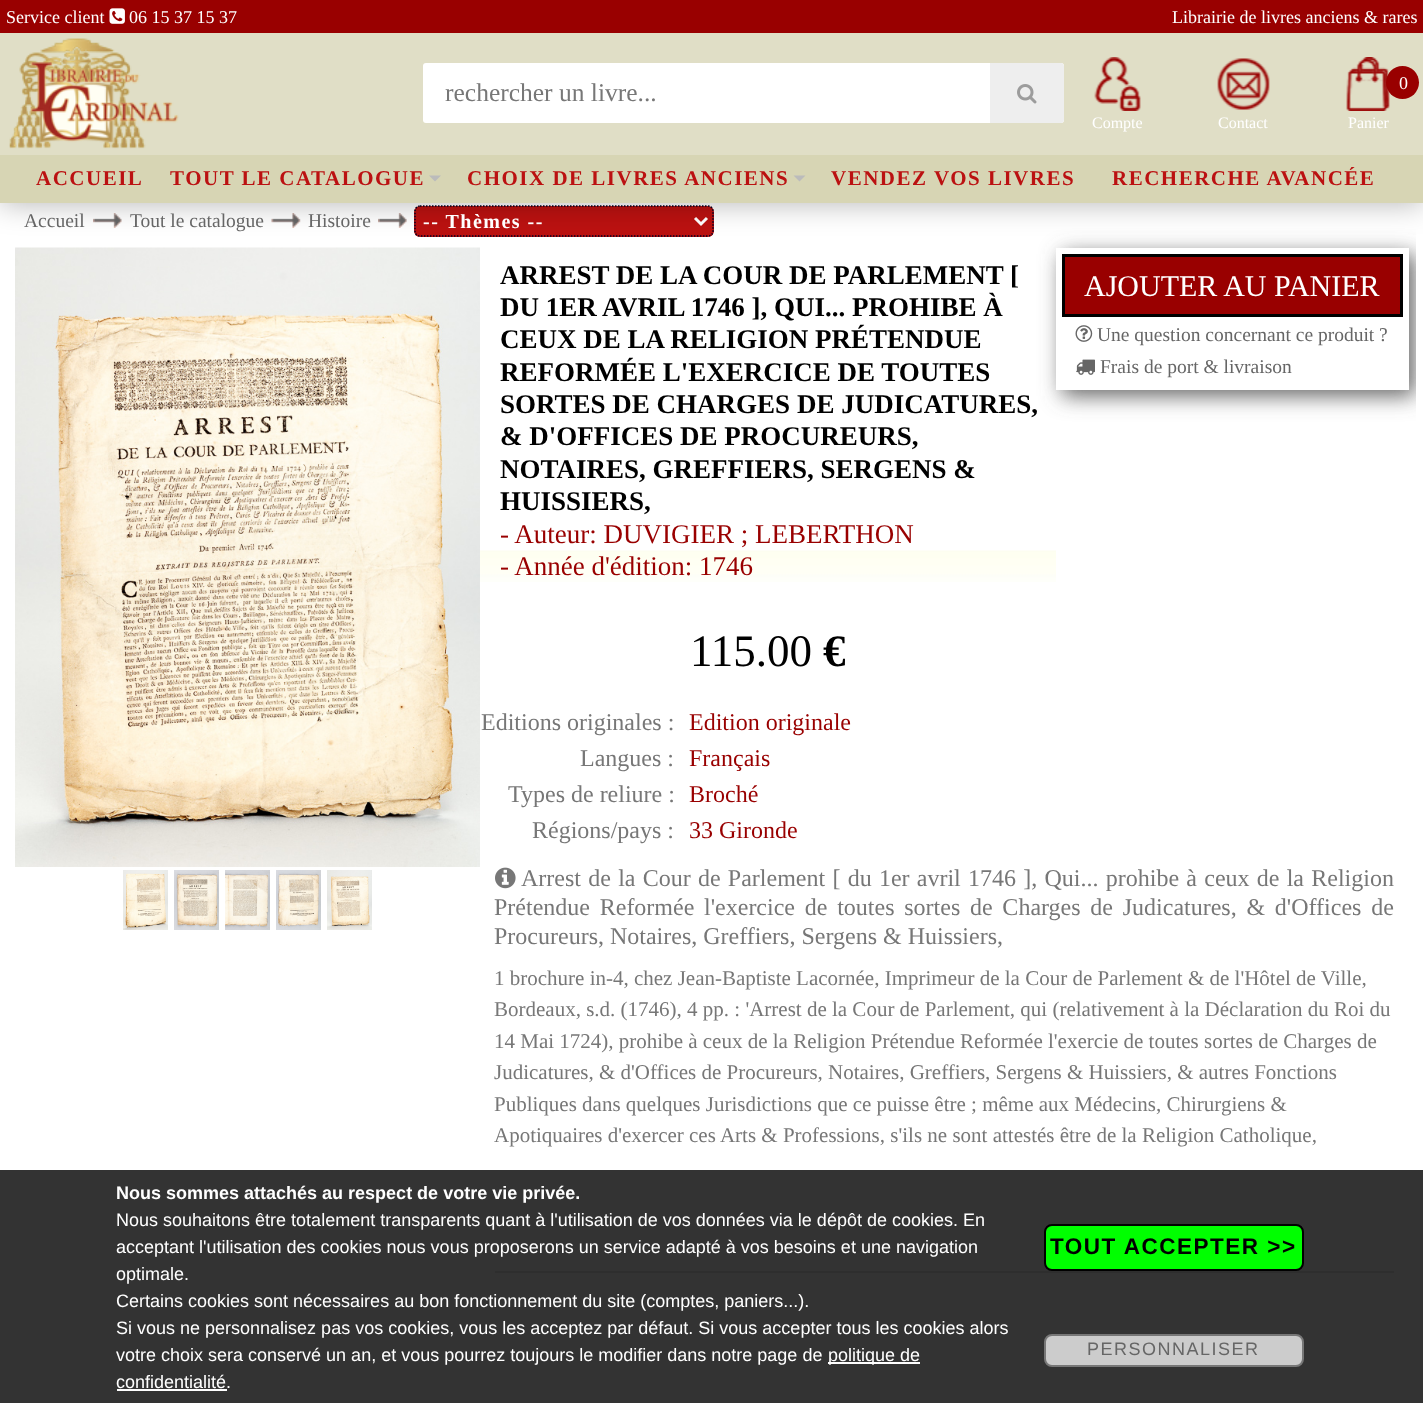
<svg xmlns="http://www.w3.org/2000/svg" width="1423" height="1403" viewBox="0 0 1423 1403">
  <defs>
    <filter id="blur1" x="-50%" y="-200%" width="200%" height="500%"><feGaussianBlur stdDeviation="15"/></filter>
    <clipPath id="clip1"><rect x="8" y="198" width="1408" height="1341"/></clipPath>
    <clipPath id="clip2"><path d="M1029 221H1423V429H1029ZM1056 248H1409V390H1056Z" clip-rule="evenodd"/></clipPath>
    <filter id="blur2" x="-50%" y="-200%" width="200%" height="500%"><feGaussianBlur stdDeviation="10.5"/></filter>
  </defs>
  <rect width="100%" height="100%" fill="#ffffff"/>
  <image x="93" y="213" width="29" height="15" href="img7.png"/>
  <image x="271" y="213" width="30" height="15" href="img8.png"/>
  <image x="378" y="213" width="29" height="15" href="img9.png"/>
  <rect x="414" y="206" width="300" height="31" rx="6" fill="#bb1110"/>
  <path d="M420 206H708C711 206 713 208.5 713 211.5V231C713 234 711 236 708 236H420C417 236 415 234 415 231V211.5C415 208.5 417 206 420 206Z" fill="none" stroke="#000022" stroke-width="1.5" stroke-dasharray="1.5 1.5"/>
  <path d="M695 218L701 224L707 218" fill="none" stroke="#ffffff" stroke-width="3"/>
  <image x="15" y="247" width="465" height="620" href="img10.png"/>
  <rect x="0" y="0" width="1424" height="203" fill="#000000" fill-opacity="0.3" filter="url(#blur1)"/>
  <rect x="0" y="33" width="1423" height="122" fill="#e0dec6"/>
  <rect x="0" y="0" width="1423" height="33" fill="#990000"/>
  <text x="6" y="23" font-family="Liberation Serif" font-size="18" fill="#ffffff">Service client</text>
  <image x="109" y="8" width="16" height="16" href="img1.png"/>
  <text x="129" y="23" font-family="Liberation Serif" font-size="18" fill="#ffffff">06 15 37 15 37</text>
  <text x="1172" y="23" font-family="Liberation Serif" font-size="18" fill="#ffffff">Librairie de livres anciens &amp; rares</text>
  <image x="9" y="38" width="170" height="111" href="img2.png"/>
  <rect x="423" y="63" width="641" height="60" rx="3" fill="#ffffff"/>
  <text x="445" y="101" font-family="Liberation Serif" font-size="25.5" fill="#777777">rechercher un livre...</text>
  <path d="M990 63H1061C1062.5 63 1064 64.5 1064 66V120C1064 121.5 1062.5 123 1061 123H990Z" fill="#eeeeee"/>
  <image x="1017" y="84" width="20" height="20" href="img3.png"/>
  <image x="1094" y="57" width="47" height="54" href="img4.png"/>
  <text x="1092" y="128" font-family="Liberation Serif" font-size="16" fill="#ffffff">Compte</text>
  <image x="1217" y="58" width="53" height="52" href="img5.png"/>
  <text x="1218" y="128" font-family="Liberation Serif" font-size="16" fill="#ffffff">Contact</text>
  <image x="1346" y="57" width="44" height="54" href="img6.png"/>
  <circle cx="1402.5" cy="82.5" r="16.5" fill="#990000"/>
  <text x="1399" y="89" font-family="Liberation Serif" font-size="18" fill="#ffffff">0</text>
  <text x="1348" y="128" font-family="Liberation Serif" font-size="16" fill="#ffffff">Panier</text>
  <rect x="0" y="155" width="1423" height="48" fill="#d7d5b4"/>
  <text x="36" y="185" font-family="Liberation Serif" font-size="21" font-weight="bold" letter-spacing="1.5" fill="#bb1111">ACCUEIL</text>
  <text x="170" y="185" font-family="Liberation Serif" font-size="21" font-weight="bold" letter-spacing="1.5" fill="#bb1111">TOUT LE CATALOGUE</text>
  <path d="M429 175.5H441L435 181.5Z" fill="#bbbbbb"/>
  <text x="467" y="185" font-family="Liberation Serif" font-size="21" font-weight="bold" letter-spacing="1.5" fill="#bb1111">CHOIX DE LIVRES ANCIENS</text>
  <path d="M793.5 175.5H805.5L799.5 181.5Z" fill="#bbbbbb"/>
  <text x="831" y="185" font-family="Liberation Serif" font-size="21" font-weight="bold" letter-spacing="1.5" fill="#bb1111">VENDEZ VOS LIVRES</text>
  <text x="1112" y="185" font-family="Liberation Serif" font-size="21" font-weight="bold" letter-spacing="1.5" fill="#bb1111">RECHERCHE AVANCÉE</text>
  <text x="24" y="227" font-family="Liberation Serif" font-size="19.5" fill="#666666">Accueil</text>
  <text x="130" y="227" font-family="Liberation Serif" font-size="19.5" fill="#666666">Tout le catalogue</text>
  <text x="308" y="227" font-family="Liberation Serif" font-size="19.5" fill="#666666">Histoire</text>
  <text x="423" y="228" font-family="Liberation Serif" font-size="20" font-weight="bold" letter-spacing="1.5" fill="#ffffff">-- Thèmes --</text>
  <image x="123" y="870" width="45" height="60" href="img11.png"/>
  <image x="174" y="870" width="45" height="60" href="img12.png"/>
  <image x="225" y="870" width="45" height="60" href="img13.png"/>
  <image x="276" y="870" width="45" height="60" href="img14.png"/>
  <image x="327" y="870" width="45" height="60" href="img15.png"/>
  <image x="480" y="550" width="576" height="32" href="img16.png"/>
  <text x="500" y="284" font-family="Liberation Serif" font-size="27" font-weight="bold" fill="#000000">ARREST DE LA COUR DE PARLEMENT [</text>
  <text x="500" y="316" font-family="Liberation Serif" font-size="27" font-weight="bold" fill="#000000">DU 1ER AVRIL 1746 ], QUI... PROHIBE À</text>
  <text x="500" y="348" font-family="Liberation Serif" font-size="27" font-weight="bold" fill="#000000">CEUX DE LA RELIGION PRÉTENDUE</text>
  <text x="500" y="381" font-family="Liberation Serif" font-size="27" font-weight="bold" fill="#000000">REFORMÉE L'EXERCICE DE TOUTES</text>
  <text x="500" y="413" font-family="Liberation Serif" font-size="27" font-weight="bold" fill="#000000">SORTES DE CHARGES DE JUDICATURES,</text>
  <text x="500" y="445" font-family="Liberation Serif" font-size="27" font-weight="bold" fill="#000000">&amp; D'OFFICES DE PROCUREURS,</text>
  <text x="500" y="478" font-family="Liberation Serif" font-size="27" font-weight="bold" fill="#000000">NOTAIRES, GREFFIERS, SERGENS &amp;</text>
  <text x="500" y="510" font-family="Liberation Serif" font-size="27" font-weight="bold" fill="#000000">HUISSIERS,</text>
  <text x="500" y="543" font-family="Liberation Serif" font-size="27" fill="#990000">- Auteur: DUVIGIER ; LEBERTHON</text>
  <text x="500" y="575" font-family="Liberation Serif" font-size="27" fill="#990000">- Année d'édition: 1746</text>
  <text x="690" y="666" font-family="Liberation Serif" font-size="45" fill="#000000">115.00</text>
  <text x="823" y="666" font-family="Liberation Serif" font-size="45" font-weight="bold" fill="#000000">€</text>
  <text x="481" y="730" font-family="Liberation Serif" font-size="24" fill="#777777">Editions originales :</text>
  <text x="689" y="730" font-family="Liberation Serif" font-size="24" fill="#990000">Edition originale</text>
  <text x="580" y="766" font-family="Liberation Serif" font-size="24" fill="#777777">Langues :</text>
  <text x="689" y="766" font-family="Liberation Serif" font-size="24" fill="#990000">Français</text>
  <text x="508" y="802" font-family="Liberation Serif" font-size="24" fill="#777777">Types de reliure :</text>
  <text x="689" y="802" font-family="Liberation Serif" font-size="24" fill="#990000">Broché</text>
  <text x="532" y="838" font-family="Liberation Serif" font-size="24" fill="#777777">Régions/pays :</text>
  <text x="689" y="838" font-family="Liberation Serif" font-size="24" fill="#990000">33 Gironde</text>
  <g clip-path="url(#clip1)">
    <g clip-path="url(#clip2)">
      <rect x="1062" y="254" width="353" height="142" fill="#666666" filter="url(#blur2)"/>
    </g>
  </g>
  <rect x="1063.5" y="255.5" width="338" height="60" fill="#990000" stroke="#000000" stroke-width="3"/>
  <text x="1084" y="296" font-family="Liberation Serif" font-size="30" fill="#ffffff">AJOUTER AU PANIER</text>
  <image x="1075" y="325" width="18" height="17" href="img17.png"/>
  <text x="1097" y="341" font-family="Liberation Serif" font-size="19.5" fill="#666666">Une question concernant ce produit ?</text>
  <image x="1076" y="359" width="19" height="16" href="img18.png"/>
  <text x="1100" y="373" font-family="Liberation Serif" font-size="19.5" fill="#666666">Frais de port &amp; livraison</text>
  <image x="495" y="867" width="21" height="22" href="img19.png"/>
  <text x="521" y="886" word-spacing="1.25" font-family="Liberation Serif" font-size="24" fill="#777777">Arrest de la Cour de Parlement [ du 1er avril 1746 ], Qui... prohibe à ceux de la Religion</text>
  <text x="494" y="915" word-spacing="3.75" font-family="Liberation Serif" font-size="24" fill="#777777">Prétendue Reformée l'exercice de toutes sortes de Charges de Judicatures, &amp; d'Offices de</text>
  <text x="494" y="944" font-family="Liberation Serif" font-size="24" fill="#777777">Procureurs, Notaires, Greffiers, Sergens &amp; Huissiers,</text>
  <text x="494" y="985" font-family="Liberation Serif" font-size="21" fill="#777777">1 brochure in-4, chez Jean-Baptiste Lacornée, Imprimeur de la Cour de Parlement &amp; de l'Hôtel de Ville,</text>
  <text x="494" y="1016" font-family="Liberation Serif" font-size="21" fill="#777777">Bordeaux, s.d. (1746), 4 pp. : 'Arrest de la Cour de Parlement, qui (relativement à la Déclaration du Roi du</text>
  <text x="494" y="1048" font-family="Liberation Serif" font-size="21" fill="#777777">14 Mai 1724), prohibe à ceux de la Religion Prétendue Reformée l'exercie de toutes sortes de Charges de</text>
  <text x="494" y="1079" font-family="Liberation Serif" font-size="21" fill="#777777">Judicatures, &amp; d'Offices de Procureurs, Notaires, Greffiers, Sergens &amp; Huissiers, &amp; autres Fonctions</text>
  <text x="494" y="1111" font-family="Liberation Serif" font-size="21" fill="#777777">Publiques dans quelques Jurisdictions que ce puisse être ; même aux Médecins, Chirurgiens &amp;</text>
  <text x="494" y="1142" font-family="Liberation Serif" font-size="21" fill="#777777">Apotiquaires d'exercer ces Arts &amp; Professions, s'ils ne sont attestés être de la Religion Catholique,</text>
  <rect x="495" y="1271" width="899" height="2" fill="#e6e6e6"/>
  <rect x="0" y="1170" width="1423" height="233" fill="#000000" fill-opacity="0.8"/>
  <text x="116" y="1199" font-family="Liberation Sans" font-size="18" font-weight="bold" fill="#ffffff">Nous sommes attachés au respect de votre vie privée.</text>
  <text x="116" y="1226" font-family="Liberation Sans" font-size="18" fill="#ffffff">Nous souhaitons être totalement transparents quant à l'utilisation de vos données via le dépôt de cookies. En</text>
  <text x="116" y="1253" font-family="Liberation Sans" font-size="18" fill="#ffffff">acceptant l'utilisation des cookies nous vous proposerons un service adapté à vos besoins et une navigation</text>
  <text x="116" y="1280" font-family="Liberation Sans" font-size="18" fill="#ffffff">optimale.</text>
  <text x="116" y="1307" font-family="Liberation Sans" font-size="18" fill="#ffffff">Certains cookies sont nécessaires au bon fonctionnement du site (comptes, paniers...).</text>
  <text x="116" y="1334" font-family="Liberation Sans" font-size="18" fill="#ffffff">Si vous ne personnalisez pas vos cookies, vous les acceptez par défaut. Si vous accepter tous les cookies alors</text>
  <text x="116" y="1361" font-family="Liberation Sans" font-size="18" fill="#ffffff">votre choix sera conservé un an, et vous pourrez toujours le modifier dans notre page de</text>
  <rect x="828" y="1362" width="92" height="2" fill="#ffffff"/>
  <text x="828" y="1361" font-family="Liberation Sans" font-size="18" fill="#ffffff">politique de</text>
  <text x="116" y="1388" font-family="Liberation Sans" font-size="18" fill="#ffffff">confidentialité.</text>
  <rect x="117" y="1389" width="110" height="2" fill="#ffffff"/>
  <rect x="1045" y="1225" width="258" height="45" rx="7" fill="#00ff00" stroke="#000000" stroke-width="2"/>
  <text x="1050" y="1254" font-family="Liberation Sans" font-size="22.5" font-weight="bold" letter-spacing="1.5" fill="#000000">TOUT ACCEPTER &gt;&gt;</text>
  <rect x="1045" y="1335" width="258" height="31" rx="7" fill="#cccccc" stroke="#777777" stroke-width="2"/>
  <text x="1087" y="1355" font-family="Liberation Sans" font-size="18" letter-spacing="1.5" fill="#666666">PERSONNALISER</text>
</svg>
